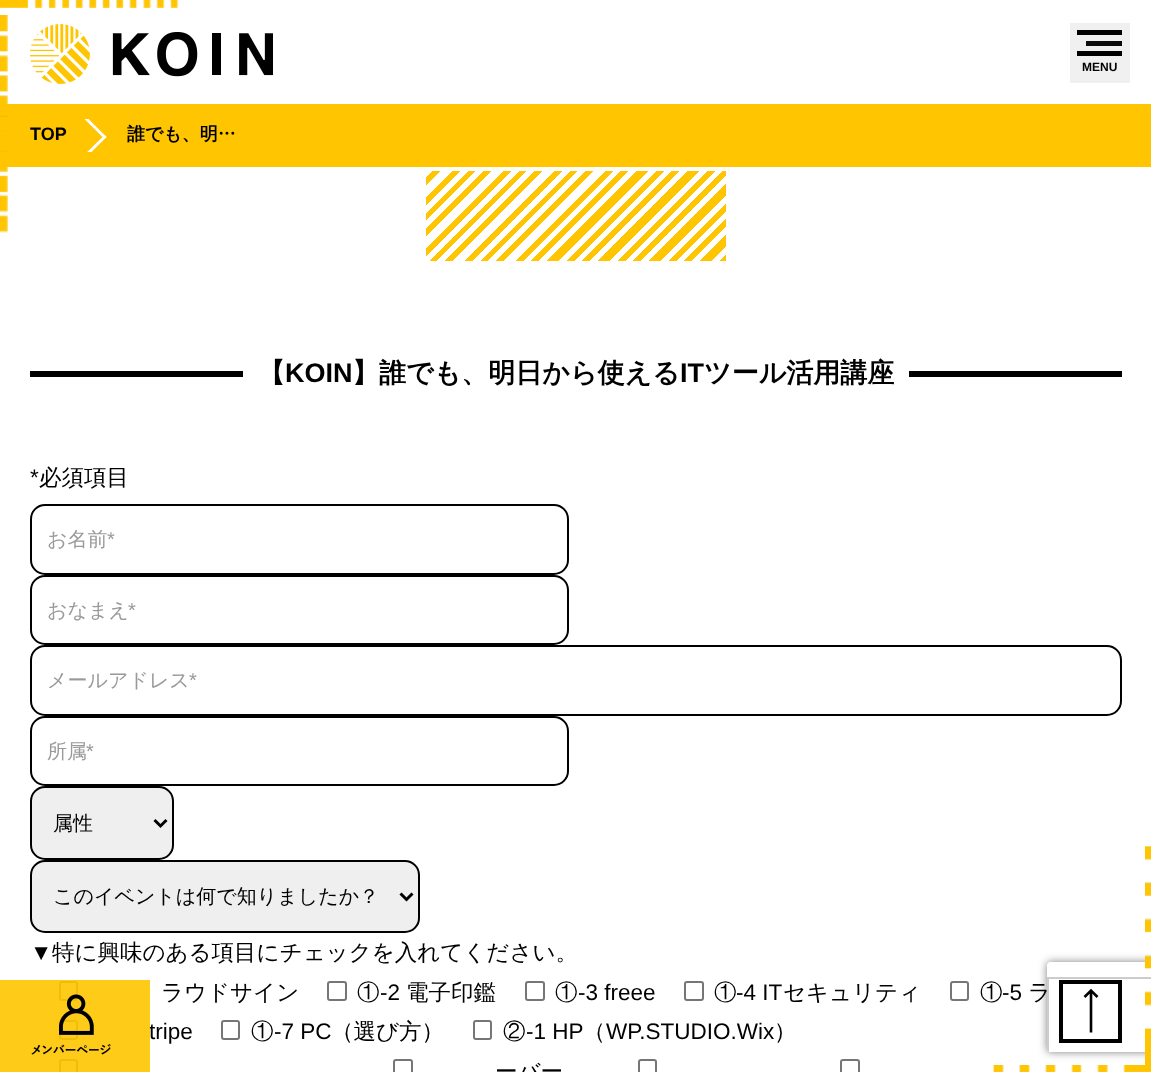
<svg xmlns="http://www.w3.org/2000/svg" width="1151" height="1072" viewBox="0 0 1151 1072">
  <defs>
    <clipPath id="clip1"><path d="M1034 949H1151V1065H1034ZM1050 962H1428C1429.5 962 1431 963.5 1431 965V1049C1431 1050.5 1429.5 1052 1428 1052H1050C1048.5 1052 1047 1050.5 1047 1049V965C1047 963.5 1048.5 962 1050 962Z" clip-rule="evenodd"/></clipPath>
    <filter id="blur1" x="-50%" y="-200%" width="200%" height="500%"><feGaussianBlur stdDeviation="4"/></filter>
    <linearGradient id="g1" gradientUnits="userSpaceOnUse" x1="1077" y1="43" x2="1122" y2="43"><stop offset="0.2" stop-color="#f0f0f0"/><stop offset="0.2" stop-color="#0a0e0a"/><stop offset="1" stop-color="#0a0809"/></linearGradient>
    <clipPath id="clip2"><rect x="30" y="119" width="96" height="33"/></clipPath>
    <linearGradient id="g2" gradientUnits="userSpaceOnUse" x1="674" y1="314" x2="478" y2="118"><stop offset="0" stop-color="#ffc500"/><stop offset="0.02" stop-color="#ffc500"/><stop offset="0.02" stop-color="#ffffff"/><stop offset="0.04" stop-color="#ffffff"/><stop offset="0.04" stop-color="#ffc500"/><stop offset="0.07" stop-color="#ffc500"/><stop offset="0.07" stop-color="#ffffff"/><stop offset="0.09" stop-color="#ffffff"/><stop offset="0.09" stop-color="#ffc500"/><stop offset="0.11" stop-color="#ffc500"/><stop offset="0.11" stop-color="#ffffff"/><stop offset="0.13" stop-color="#ffffff"/><stop offset="0.13" stop-color="#ffc500"/><stop offset="0.15" stop-color="#ffc500"/><stop offset="0.15" stop-color="#ffffff"/><stop offset="0.17" stop-color="#ffffff"/><stop offset="0.17" stop-color="#ffc500"/><stop offset="0.2" stop-color="#ffc500"/><stop offset="0.2" stop-color="#ffffff"/><stop offset="0.22" stop-color="#ffffff"/><stop offset="0.22" stop-color="#ffc500"/><stop offset="0.24" stop-color="#ffc500"/><stop offset="0.24" stop-color="#ffffff"/><stop offset="0.26" stop-color="#ffffff"/><stop offset="0.26" stop-color="#ffc500"/><stop offset="0.28" stop-color="#ffc500"/><stop offset="0.28" stop-color="#ffffff"/><stop offset="0.3" stop-color="#ffffff"/><stop offset="0.3" stop-color="#ffc500"/><stop offset="0.33" stop-color="#ffc500"/><stop offset="0.33" stop-color="#ffffff"/><stop offset="0.35" stop-color="#ffffff"/><stop offset="0.35" stop-color="#ffc500"/><stop offset="0.37" stop-color="#ffc500"/><stop offset="0.37" stop-color="#ffffff"/><stop offset="0.39" stop-color="#ffffff"/><stop offset="0.39" stop-color="#ffc500"/><stop offset="0.41" stop-color="#ffc500"/><stop offset="0.41" stop-color="#ffffff"/><stop offset="0.43" stop-color="#ffffff"/><stop offset="0.43" stop-color="#ffc500"/><stop offset="0.46" stop-color="#ffc500"/><stop offset="0.46" stop-color="#ffffff"/><stop offset="0.48" stop-color="#ffffff"/><stop offset="0.48" stop-color="#ffc500"/><stop offset="0.5" stop-color="#ffc500"/><stop offset="0.5" stop-color="#ffffff"/><stop offset="0.52" stop-color="#ffffff"/><stop offset="0.52" stop-color="#ffc500"/><stop offset="0.54" stop-color="#ffc500"/><stop offset="0.54" stop-color="#ffffff"/><stop offset="0.57" stop-color="#ffffff"/><stop offset="0.57" stop-color="#ffc500"/><stop offset="0.59" stop-color="#ffc500"/><stop offset="0.59" stop-color="#ffffff"/><stop offset="0.61" stop-color="#ffffff"/><stop offset="0.61" stop-color="#ffc500"/><stop offset="0.63" stop-color="#ffc500"/><stop offset="0.63" stop-color="#ffffff"/><stop offset="0.65" stop-color="#ffffff"/><stop offset="0.65" stop-color="#ffc500"/><stop offset="0.67" stop-color="#ffc500"/><stop offset="0.67" stop-color="#ffffff"/><stop offset="0.7" stop-color="#ffffff"/><stop offset="0.7" stop-color="#ffc500"/><stop offset="0.72" stop-color="#ffc500"/><stop offset="0.72" stop-color="#ffffff"/><stop offset="0.74" stop-color="#ffffff"/><stop offset="0.74" stop-color="#ffc500"/><stop offset="0.76" stop-color="#ffc500"/><stop offset="0.76" stop-color="#ffffff"/><stop offset="0.78" stop-color="#ffffff"/><stop offset="0.78" stop-color="#ffc500"/><stop offset="0.8" stop-color="#ffc500"/><stop offset="0.8" stop-color="#ffffff"/><stop offset="0.83" stop-color="#ffffff"/><stop offset="0.83" stop-color="#ffc500"/><stop offset="0.85" stop-color="#ffc500"/><stop offset="0.85" stop-color="#ffffff"/><stop offset="0.87" stop-color="#ffffff"/><stop offset="0.87" stop-color="#ffc500"/><stop offset="0.89" stop-color="#ffc500"/><stop offset="0.89" stop-color="#ffffff"/><stop offset="0.91" stop-color="#ffffff"/><stop offset="0.91" stop-color="#ffc500"/><stop offset="0.93" stop-color="#ffc500"/><stop offset="0.93" stop-color="#ffffff"/><stop offset="0.96" stop-color="#ffffff"/><stop offset="0.96" stop-color="#ffc500"/><stop offset="0.98" stop-color="#ffc500"/><stop offset="0.98" stop-color="#ffffff"/><stop offset="1" stop-color="#ffffff"/></linearGradient>
  </defs>
  <rect width="100%" height="100%" fill="#ffffff"/>
  <image x="0" y="0" width="179" height="8" href="img1.png"/>
  <rect x="0" y="104" width="1151" height="63" fill="#ffc500"/>
  <image x="0" y="15" width="8" height="218" href="img2.png"/>
  <g clip-path="url(#clip1)">
    <rect x="1047" y="962" width="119" height="90" rx="3" fill="#808080" filter="url(#blur1)"/>
  </g>
  <text x="1028" y="1000" font-family="WenQuanYi Zen Hei" font-size="22.5" font-weight="500" fill="#000000">ラ</text>
  <path d="M1049 979H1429V1052L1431 1050V977H1047V1050L1049 1052Z" fill="#cccccc"/>
  <image x="1145" y="846" width="6" height="219" href="img3.png"/>
  <image x="993" y="1065" width="158" height="7" href="img4.png"/>
  <image x="30" y="24" width="243" height="60" href="img5.png"/>
  <rect x="1070" y="23" width="60" height="60" fill="#f0f0f0"/>
  <rect x="1086" y="41" width="36" height="5" fill="url(#g1)"/>
  <rect x="1077" y="30" width="45" height="5" fill="#000000"/>
  <rect x="1077" y="51" width="45" height="5" fill="#000000"/>
  <text x="1082" y="71" font-family="Liberation Sans" font-size="12" font-weight="bold" fill="#000000">MENU</text>
  <text x="30" y="140" font-family="Liberation Sans" font-size="18" font-weight="bold" fill="#000000">TOP</text>
  <g clip-path="url(#clip2)">
    <path d="M72.5 103L106.5 137L104.5 139L70.5 105Z" fill="#ffffff"/>
    <path d="M104.5 135L106.5 137L72.5 171L70.5 168.5Z" fill="#ffffff"/>
  </g>
  <text x="127" y="140" font-family="WenQuanYi Zen Hei" font-size="18" font-weight="bold" fill="#000000">誰でも、明…</text>
  <rect x="426" y="171" width="300" height="90" fill="url(#g2)"/>
  <rect x="30" y="371" width="213" height="6" fill="#000000"/>
  <text x="258" y="382" font-family="WenQuanYi Zen Hei" font-size="27" font-weight="bold" fill="#000000">【</text>
  <text x="285" y="382" font-family="Liberation Sans" font-size="27" font-weight="bold" fill="#000000">KOIN</text>
  <text x="352" y="382" font-family="WenQuanYi Zen Hei" font-size="27" font-weight="bold" fill="#000000">】誰でも、明日から使える</text>
  <text x="680" y="382" font-family="Liberation Sans" font-size="27" font-weight="bold" fill="#000000">IT</text>
  <text x="704" y="382" font-family="WenQuanYi Zen Hei" font-size="27" font-weight="bold" fill="#000000">ツール活用講座</text>
  <rect x="909" y="371" width="213" height="6" fill="#000000"/>
  <text x="30" y="485" font-family="Liberation Sans" font-size="22.5" fill="#000000">*</text>
  <text x="39" y="485" font-family="WenQuanYi Zen Hei" font-size="22.5" font-weight="500" fill="#000000">必須項目</text>
  <rect x="31" y="505" width="537" height="69" rx="14" fill="none" stroke="#000000" stroke-width="2"/>
  <text x="47" y="546" font-family="WenQuanYi Zen Hei" font-size="20" font-weight="500" fill="#999999">お名前</text>
  <text x="107" y="546" font-family="Liberation Sans" font-size="20" fill="#999999">*</text>
  <rect x="31" y="576" width="537" height="68" rx="14" fill="none" stroke="#000000" stroke-width="2"/>
  <text x="47" y="617" font-family="WenQuanYi Zen Hei" font-size="20" font-weight="500" fill="#999999">おなまえ</text>
  <text x="128" y="617" font-family="Liberation Sans" font-size="20" fill="#999999">*</text>
  <rect x="31" y="646" width="1090" height="69" rx="14" fill="none" stroke="#000000" stroke-width="2"/>
  <text x="47" y="687" font-family="WenQuanYi Zen Hei" font-size="20" font-weight="500" fill="#999999">メールアドレス</text>
  <text x="189" y="687" font-family="Liberation Sans" font-size="20" fill="#999999">*</text>
  <rect x="31" y="717" width="537" height="68" rx="14" fill="none" stroke="#000000" stroke-width="2"/>
  <text x="47" y="758" font-family="WenQuanYi Zen Hei" font-size="20" font-weight="500" fill="#999999">所属</text>
  <text x="86" y="758" font-family="Liberation Sans" font-size="20" fill="#999999">*</text>
  <rect x="31" y="787" width="142" height="72" rx="14" fill="#efefef" stroke="#000000" stroke-width="2"/>
  <path d="M154.5 820L160.5 826L166.5 820" fill="none" stroke="#000000" stroke-width="3"/>
  <text x="53" y="830" font-family="WenQuanYi Zen Hei" font-size="20" font-weight="500" fill="#000000">属性</text>
  <rect x="31" y="861" width="388" height="71" rx="14" fill="#efefef" stroke="#000000" stroke-width="2"/>
  <path d="M400.5 893.5L406.5 899.5L412.5 893.5" fill="none" stroke="#000000" stroke-width="3"/>
  <text x="53" y="903" font-family="WenQuanYi Zen Hei" font-size="20" font-weight="500" fill="#000000">このイベントは何で知りましたか？</text>
  <text x="30" y="960" font-family="Liberation Sans" font-size="22.5" fill="#000000">▼</text>
  <text x="52" y="960" font-family="WenQuanYi Zen Hei" font-size="22.5" font-weight="500" fill="#000000">特に興味のある項目にチェックを入れてください。</text>
  <rect x="60" y="982" width="17" height="18" rx="2" fill="none" stroke="#767676" stroke-width="2"/>
  <text x="161" y="1000" font-family="WenQuanYi Zen Hei" font-size="22.5" font-weight="500" fill="#000000">ラウドサイン</text>
  <rect x="328" y="982" width="18" height="18" rx="2" fill="none" stroke="#767676" stroke-width="2"/>
  <text x="357" y="1000" font-family="WenQuanYi Zen Hei" font-size="22.5" font-weight="500" fill="#000000">①</text>
  <text x="380" y="1000" font-family="Liberation Sans" font-size="22.5" fill="#000000">-2</text>
  <text x="406" y="1000" font-family="WenQuanYi Zen Hei" font-size="22.5" font-weight="500" fill="#000000">電子印鑑</text>
  <rect x="526" y="982" width="18" height="18" rx="2" fill="none" stroke="#767676" stroke-width="2"/>
  <text x="555" y="1000" font-family="WenQuanYi Zen Hei" font-size="22.5" font-weight="500" fill="#000000">①</text>
  <text x="578" y="1000" font-family="Liberation Sans" font-size="22.5" fill="#000000">-3 freee</text>
  <rect x="685" y="982" width="18" height="18" rx="2" fill="none" stroke="#767676" stroke-width="2"/>
  <text x="714" y="1000" font-family="WenQuanYi Zen Hei" font-size="22.5" font-weight="500" fill="#000000">①</text>
  <text x="736" y="1000" font-family="Liberation Sans" font-size="22.5" fill="#000000">-4 IT</text>
  <text x="783" y="1000" font-family="WenQuanYi Zen Hei" font-size="22.5" font-weight="500" fill="#000000">セキュリティ</text>
  <rect x="951" y="982" width="17" height="18" rx="2" fill="none" stroke="#767676" stroke-width="2"/>
  <text x="980" y="1000" font-family="WenQuanYi Zen Hei" font-size="22.5" font-weight="500" fill="#000000">①</text>
  <text x="1002" y="1000" font-family="Liberation Sans" font-size="22.5" fill="#000000">-5</text>
  <rect x="60" y="1021" width="17" height="18" rx="2" fill="none" stroke="#767676" stroke-width="2"/>
  <text x="149" y="1039" font-family="Liberation Sans" font-size="22.5" fill="#000000">tripe</text>
  <rect x="222" y="1021" width="17" height="18" rx="2" fill="none" stroke="#767676" stroke-width="2"/>
  <text x="251" y="1039" font-family="WenQuanYi Zen Hei" font-size="22.5" font-weight="500" fill="#000000">①</text>
  <text x="274" y="1039" font-family="Liberation Sans" font-size="22.5" fill="#000000">-7 PC</text>
  <text x="331" y="1039" font-family="WenQuanYi Zen Hei" font-size="22.5" font-weight="500" fill="#000000">（選び方）</text>
  <rect x="474" y="1021" width="17" height="18" rx="2" fill="none" stroke="#767676" stroke-width="2"/>
  <text x="503" y="1039" font-family="WenQuanYi Zen Hei" font-size="22.5" font-weight="500" fill="#000000">②</text>
  <text x="526" y="1039" font-family="Liberation Sans" font-size="22.5" fill="#000000">-1 HP</text>
  <text x="583" y="1039" font-family="WenQuanYi Zen Hei" font-size="22.5" font-weight="500" fill="#000000">（</text>
  <text x="606" y="1039" font-family="Liberation Sans" font-size="22.5" fill="#000000">WP.STUDIO.Wix</text>
  <text x="774" y="1039" font-family="WenQuanYi Zen Hei" font-size="22.5" font-weight="500" fill="#000000">）</text>
  <rect x="60" y="1060" width="17" height="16" rx="2" fill="none" stroke="#767676" stroke-width="2"/>
  <rect x="394" y="1060" width="18" height="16" rx="2" fill="none" stroke="#767676" stroke-width="2"/>
  <text x="495" y="1079" font-family="WenQuanYi Zen Hei" font-size="22.5" font-weight="500" fill="#000000">ーバー</text>
  <rect x="639" y="1060" width="17" height="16" rx="2" fill="none" stroke="#767676" stroke-width="2"/>
  <rect x="841" y="1060" width="18" height="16" rx="2" fill="none" stroke="#767676" stroke-width="2"/>
  <image x="0" y="980" width="150" height="92" href="img6.png"/>
  <rect x="1061" y="982" width="59" height="59" fill="none" stroke="#000000" stroke-width="4"/>
  <path d="M1091 990.5V1032.5M1084.5 997L1091 990.5L1097.5 997" fill="none" stroke="#000000" stroke-width="2.6"/>
</svg>
